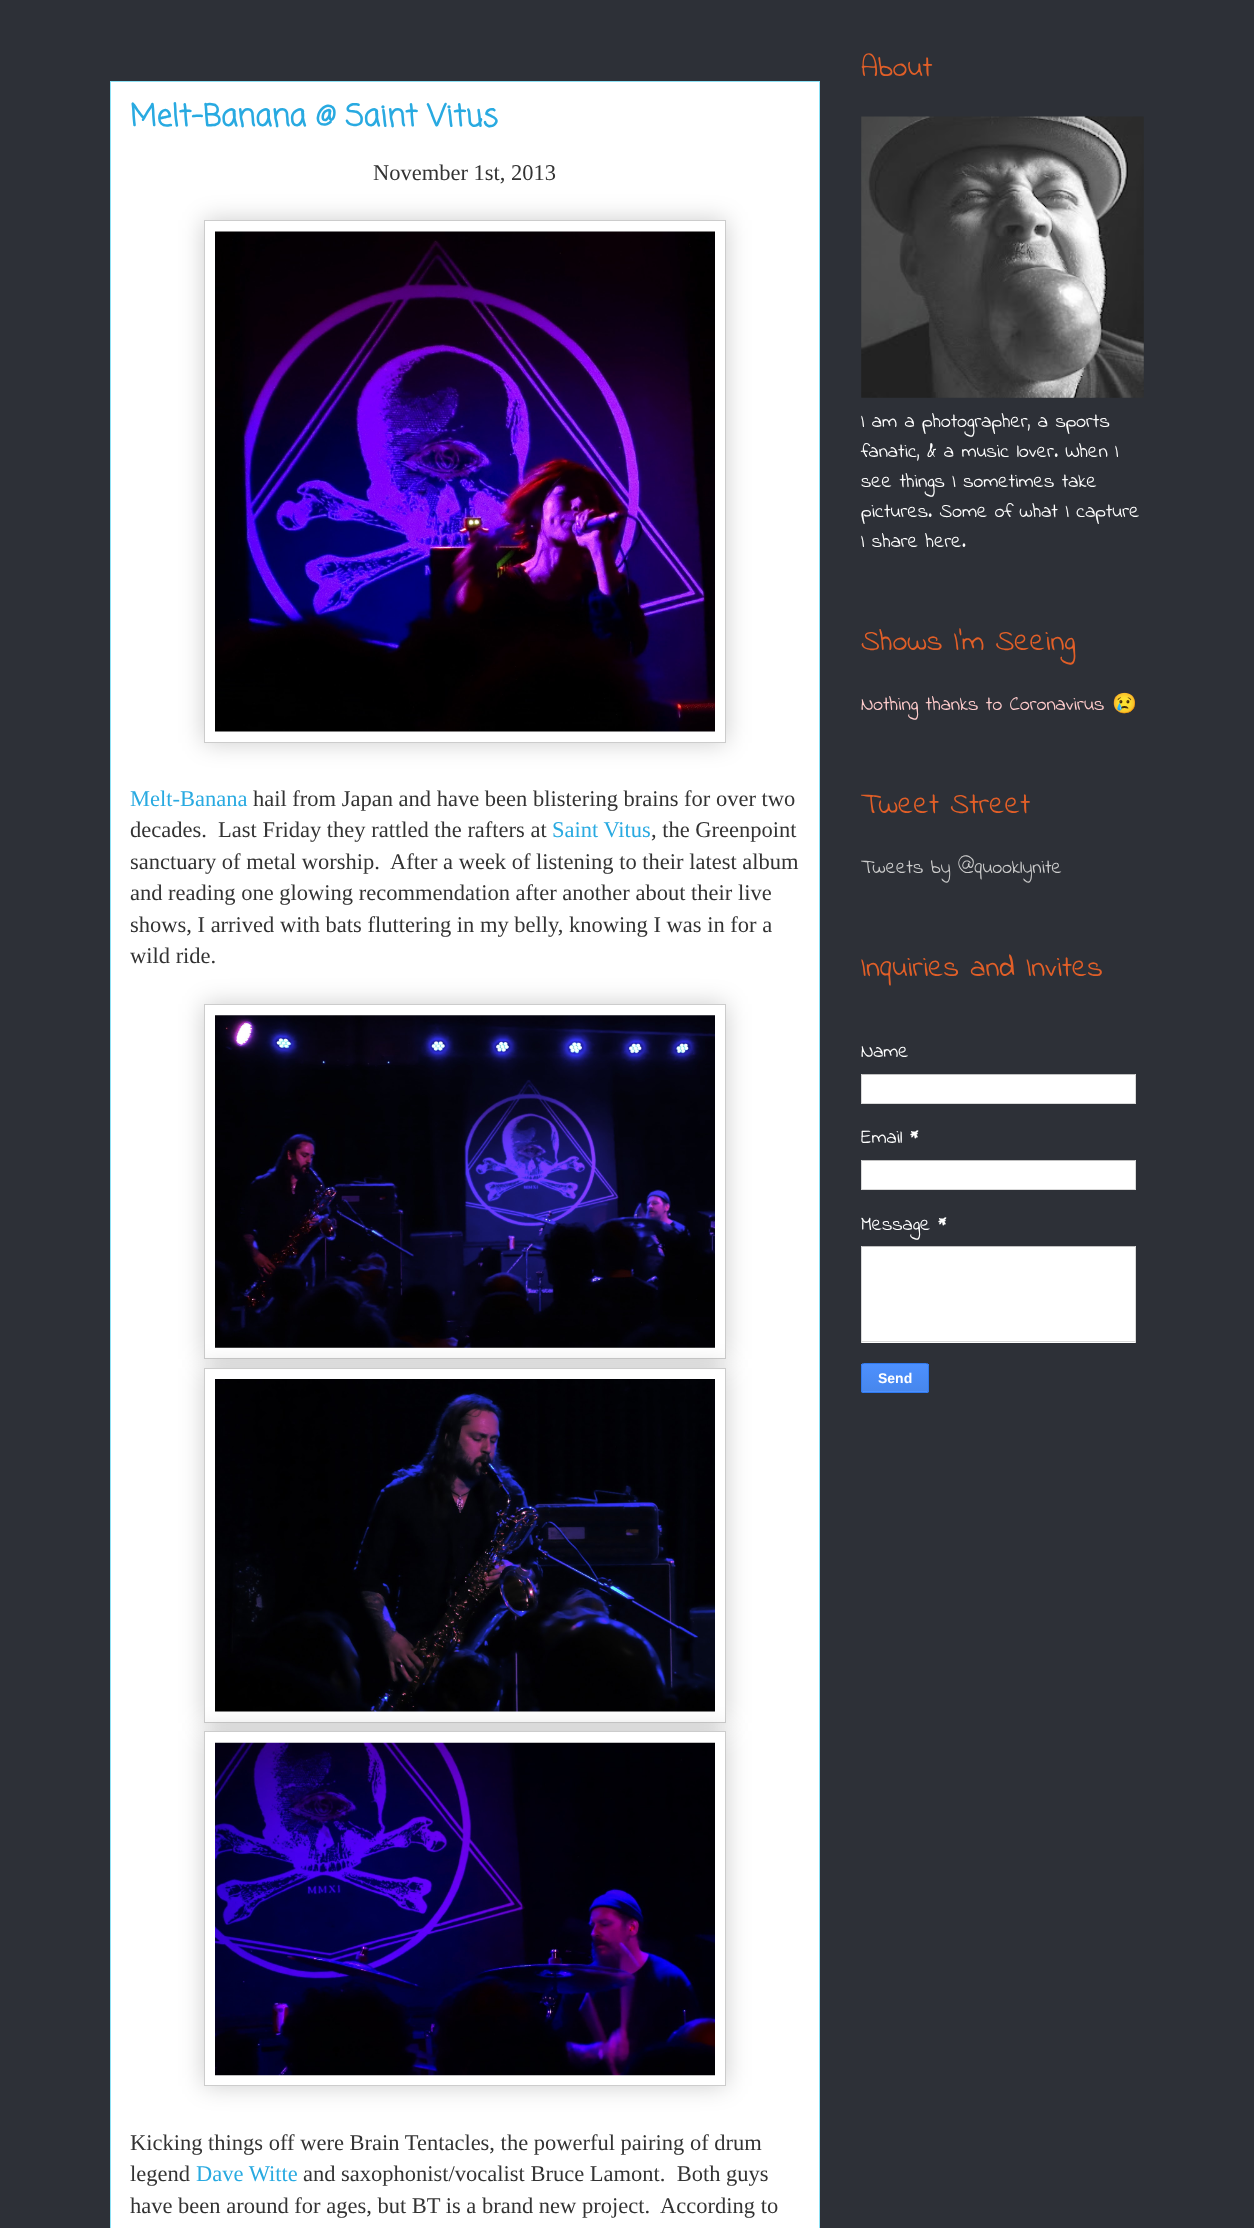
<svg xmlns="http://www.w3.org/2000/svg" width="1254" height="2228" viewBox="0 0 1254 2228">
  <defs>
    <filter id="blur1" x="-50%" y="-200%" width="200%" height="500%"><feGaussianBlur stdDeviation="12.5"/></filter>
    <linearGradient id="g1" gradientUnits="userSpaceOnUse" x1="895" y1="1364" x2="895" y2="1391"><stop offset="0" stop-color="#4d90fe"/><stop offset="1" stop-color="#4787ed"/></linearGradient>
    <clipPath id="clip1"><rect x="861" y="1363" width="68" height="30" rx="2.5"/></clipPath>
    <linearGradient id="g2" gradientUnits="userSpaceOnUse" x1="895" y1="1391" x2="895" y2="1419"><stop offset="0" stop-color="#4d90fe"/><stop offset="1" stop-color="#4787ed"/></linearGradient>
  </defs>
  <rect width="100%" height="100%" fill="#2d3037"/>
  <rect x="110.5" y="81.5" width="709" height="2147" fill="#ffffff" stroke="#8ce1f5"/>
  <text x="130" y="126" font-family="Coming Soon" font-size="30" font-weight="bold" fill="#29aae1">Melt-Banana @ Saint Vitus</text>
  <text x="373" y="180" font-family="Liberation Serif" font-size="22.5" fill="#333333">November 1st, 2013</text>
  <rect x="204" y="220" width="522" height="523" fill="#000000" fill-opacity="0.2" filter="url(#blur1)"/>
  <rect x="204.5" y="220.5" width="521" height="522" fill="#ffffff" stroke="#cccccc"/>
  <image x="215" y="231" width="500" height="501" href="img1.png"/>
  <text x="130" y="806" font-family="Liberation Serif" font-size="22.5" fill="#29aae1">Melt-Banana</text>
  <text x="253" y="806" font-family="Liberation Serif" font-size="22.5" fill="#333333">hail from Japan and have been blistering brains for over two</text>
  <text x="130" y="837" font-family="Liberation Serif" font-size="22.5" fill="#333333" xml:space="preserve">decades.  Last Friday they rattled the rafters at</text>
  <text x="552" y="837" font-family="Liberation Serif" font-size="22.5" fill="#29aae1">Saint Vitus</text>
  <text x="651" y="837" font-family="Liberation Serif" font-size="22.5" fill="#333333">, the Greenpoint</text>
  <text x="130" y="869" font-family="Liberation Serif" font-size="22.5" fill="#333333" xml:space="preserve">sanctuary of metal worship.  After a week of listening to their latest album</text>
  <text x="130" y="900" font-family="Liberation Serif" font-size="22.5" fill="#333333">and reading one glowing recommendation after another about their live</text>
  <text x="130" y="932" font-family="Liberation Serif" font-size="22.5" fill="#333333">shows, I arrived with bats fluttering in my belly, knowing I was in for a</text>
  <text x="130" y="963" font-family="Liberation Serif" font-size="22.5" fill="#333333">wild ride.</text>
  <rect x="204" y="1004" width="522" height="355" fill="#000000" fill-opacity="0.2" filter="url(#blur1)"/>
  <rect x="204.5" y="1004.5" width="521" height="354" fill="#ffffff" stroke="#cccccc"/>
  <image x="215" y="1015" width="500" height="333" href="img2.png"/>
  <rect x="204" y="1368" width="522" height="355" fill="#000000" fill-opacity="0.2" filter="url(#blur1)"/>
  <rect x="204.5" y="1368.5" width="521" height="354" fill="#ffffff" stroke="#cccccc"/>
  <image x="215" y="1379" width="500" height="333" href="img3.png"/>
  <rect x="204" y="1731" width="522" height="355" fill="#000000" fill-opacity="0.2" filter="url(#blur1)"/>
  <rect x="204.5" y="1731.5" width="521" height="354" fill="#ffffff" stroke="#cccccc"/>
  <image x="215" y="1742" width="500" height="334" href="img4.png"/>
  <text x="130" y="2150" font-family="Liberation Serif" font-size="22.5" fill="#333333">Kicking things off were Brain Tentacles, the powerful pairing of drum</text>
  <text x="130" y="2181" font-family="Liberation Serif" font-size="22.5" fill="#333333">legend</text>
  <text x="196" y="2181" font-family="Liberation Serif" font-size="22.5" fill="#29aae1">Dave Witte</text>
  <text x="303" y="2181" font-family="Liberation Serif" font-size="22.5" fill="#333333" xml:space="preserve">and saxophonist/vocalist Bruce Lamont.  Both guys</text>
  <text x="130" y="2213" font-family="Liberation Serif" font-size="22.5" fill="#333333" xml:space="preserve">have been around for ages, but BT is a brand new project.  According to</text>
  <text x="861" y="76" font-family="Indie Flower" font-size="30" fill="#e15f28">About</text>
  <image x="861" y="116" width="283" height="282" href="img5.png"/>
  <text x="861" y="427" font-family="Indie Flower" font-size="20" fill="#ffffff">I am a photographer, a sports</text>
  <text x="861" y="457" font-family="Indie Flower" font-size="20" fill="#ffffff">fanatic, &amp; a music lover. When I</text>
  <text x="861" y="487" font-family="Indie Flower" font-size="20" fill="#ffffff">see things I sometimes take</text>
  <text x="861" y="517" font-family="Indie Flower" font-size="20" fill="#ffffff">pictures. Some of what I capture</text>
  <text x="861" y="547" font-family="Indie Flower" font-size="20" fill="#ffffff">I share here.</text>
  <text x="861" y="650" font-family="Indie Flower" font-size="30" fill="#e15f28">Shows I'm Seeing</text>
  <text x="861" y="710" font-family="Indie Flower" font-size="20" fill="#ffcccc">Nothing thanks to Coronavirus</text>
  <text x="1112" y="710" font-family="Noto Color Emoji" font-size="20" fill="#ffcccc">😢</text>
  <text x="861" y="813" font-family="Indie Flower" font-size="30" fill="#e15f28">Tweet Street</text>
  <text x="861" y="873" font-family="Indie Flower" font-size="20" fill="#cccccc">Tweets by @quooklynite</text>
  <text x="861" y="976" font-family="Indie Flower" font-size="30" fill="#e15f28">Inquiries and Invites</text>
  <text x="861" y="1057" font-family="Indie Flower" font-size="20" fill="#ffffff">Name</text>
  <rect x="862" y="1075" width="273" height="28" fill="#ffffff"/>
  <rect x="861" y="1074" width="275" height="1" fill="#c0c0c0"/>
  <rect x="1135" y="1074" width="1" height="30" fill="#d9d9d9"/>
  <rect x="861" y="1103" width="275" height="1" fill="#d9d9d9"/>
  <rect x="861" y="1074" width="1" height="30" fill="#d9d9d9"/>
  <text x="861" y="1143" font-family="Indie Flower" font-size="20" fill="#ffffff">Email</text>
  <text x="910" y="1143" font-family="Indie Flower" font-size="20" font-weight="bold" fill="#ffffff">*</text>
  <rect x="862" y="1161" width="273" height="28" fill="#ffffff"/>
  <rect x="861" y="1160" width="275" height="1" fill="#c0c0c0"/>
  <rect x="1135" y="1160" width="1" height="30" fill="#d9d9d9"/>
  <rect x="861" y="1189" width="275" height="1" fill="#d9d9d9"/>
  <rect x="861" y="1160" width="1" height="30" fill="#d9d9d9"/>
  <text x="861" y="1230" font-family="Indie Flower" font-size="20" fill="#ffffff">Message</text>
  <text x="938" y="1230" font-family="Indie Flower" font-size="20" font-weight="bold" fill="#ffffff">*</text>
  <rect x="862" y="1247" width="273" height="96" fill="#ffffff"/>
  <rect x="861" y="1246" width="275" height="1" fill="#c0c0c0"/>
  <rect x="1135" y="1246" width="1" height="97" fill="#d9d9d9"/>
  <rect x="861" y="1341" width="275" height="1" fill="#d9d9d9"/>
  <rect x="861" y="1246" width="1" height="97" fill="#d9d9d9"/>
  <rect x="861" y="1364" width="68" height="27" fill="url(#g1)"/>
  <g clip-path="url(#clip1)">
    <rect x="861" y="1391" width="68" height="2" fill="url(#g2)"/>
  </g>
  <rect x="861.5" y="1363.5" width="67" height="29" rx="2" fill="none" stroke="#3079ed"/>
  <text x="878" y="1383" font-family="Liberation Sans" font-size="14" font-weight="bold" fill="#ffffff">Send</text>
</svg>
